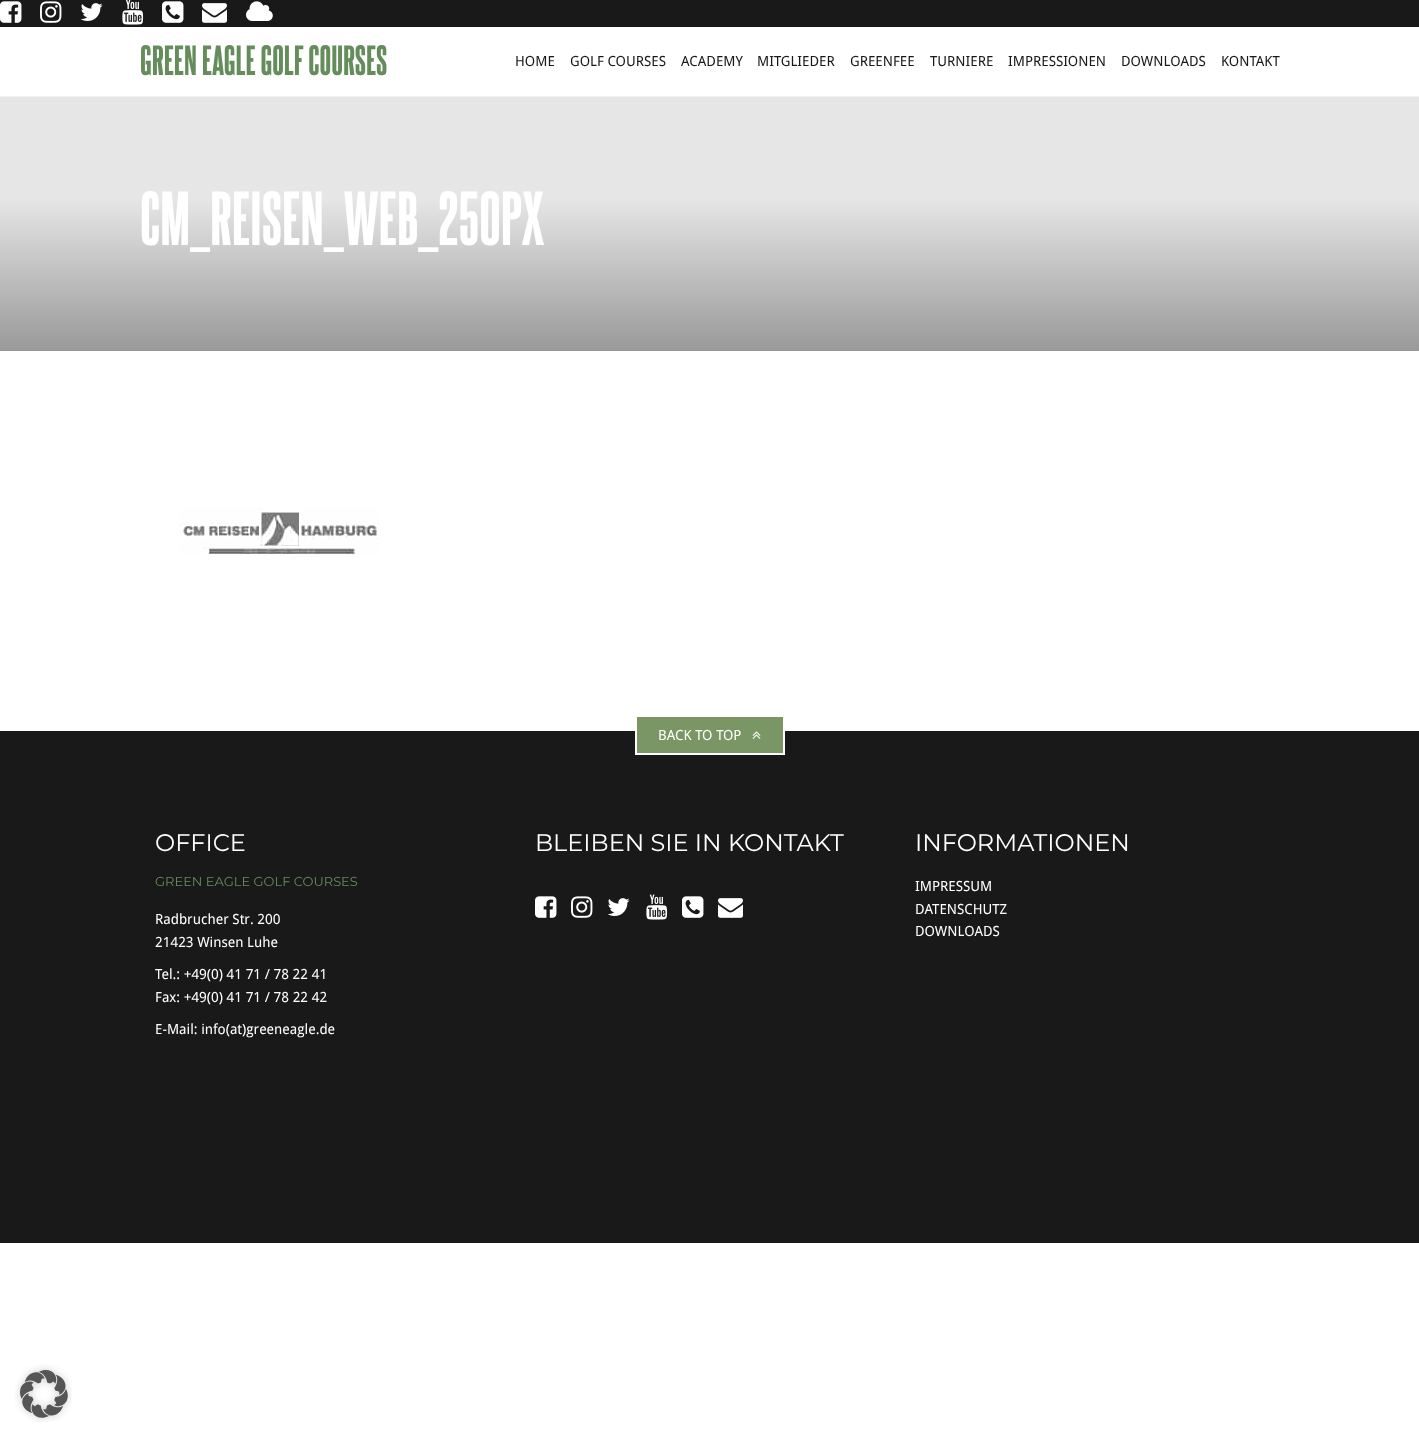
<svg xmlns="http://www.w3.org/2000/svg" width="1419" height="1438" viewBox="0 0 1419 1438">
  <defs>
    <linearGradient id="g1" gradientUnits="userSpaceOnUse" x1="710" y1="97" x2="710" y2="351"><stop offset="0" stop-color="#e6e6e6"/><stop offset="0.4" stop-color="#e6e6e6"/><stop offset="1" stop-color="#999999"/></linearGradient>
  </defs>
  <rect width="100%" height="100%" fill="#ffffff"/>
  <rect x="0" y="0" width="1419" height="27" fill="#191919"/>
  <image x="0" y="1" width="22" height="22" href="img1.png"/>
  <image x="40" y="1" width="22" height="22" href="img2.png"/>
  <image x="80" y="3" width="23" height="18" href="img3.png"/>
  <image x="122" y="0" width="22" height="25" href="img4.png"/>
  <image x="162" y="1" width="22" height="22" href="img5.png"/>
  <image x="202" y="3" width="25" height="20" href="img6.png"/>
  <image x="246" y="1" width="27" height="20" href="img7.png"/>
  <rect x="0" y="96" width="1419" height="1" fill="#f2f2f2"/>
  <text x="140" y="75" font-family="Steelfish" font-size="36" font-weight="800" fill="#658d5b">GREEN EAGLE GOLF COURSES</text>
  <text x="515" y="66" font-family="Droid Sans" font-size="14" fill="#191919">HOME</text>
  <text x="570" y="66" font-family="Droid Sans" font-size="14" fill="#191919">GOLF COURSES</text>
  <text x="681" y="66" font-family="Droid Sans" font-size="14" fill="#191919">ACADEMY</text>
  <text x="757" y="66" font-family="Droid Sans" font-size="14" fill="#191919">MITGLIEDER</text>
  <text x="850" y="66" font-family="Droid Sans" font-size="14" fill="#191919">GREENFEE</text>
  <text x="930" y="66" font-family="Droid Sans" font-size="14" fill="#191919">TURNIERE</text>
  <text x="1008" y="66" font-family="Droid Sans" font-size="14" fill="#191919">IMPRESSIONEN</text>
  <text x="1121" y="66" font-family="Droid Sans" font-size="14" fill="#191919">DOWNLOADS</text>
  <text x="1221" y="66" font-family="Droid Sans" font-size="14" fill="#191919">KONTAKT</text>
  <rect x="0" y="97" width="1419" height="254" fill="url(#g1)"/>
  <text x="140" y="245" font-family="Steelfish" font-size="65" font-weight="800" fill="#ffffff">CM_REISEN_WEB_250PX</text>
  <image x="179" y="507" width="200" height="48" href="img8.png"/>
  <rect x="0" y="731" width="1419" height="512" fill="#191919"/>
  <rect x="636" y="716" width="148" height="38" fill="#7b9665" stroke="#ffffff" stroke-width="2"/>
  <text x="658" y="740" font-family="Droid Sans" font-size="14" fill="#ffffff">BACK TO TOP</text>
  <image x="752" y="731" width="9" height="8" href="img9.png"/>
  <text x="155" y="851" font-family="Montserrat" font-size="24" font-weight="100" fill="#ffffff">OFFICE</text>
  <text x="155" y="886" font-family="Montserrat" font-size="13" font-weight="100" fill="#658d5b">GREEN EAGLE GOLF COURSES</text>
  <text x="155" y="924" font-family="Droid Sans" font-size="14" fill="#ffffff">Radbrucher Str. 200</text>
  <text x="155" y="947" font-family="Droid Sans" font-size="14" fill="#ffffff">21423 Winsen Luhe</text>
  <text x="155" y="979" font-family="Droid Sans" font-size="14" fill="#ffffff">Tel.: +49(0) 41 71 / 78 22 41</text>
  <text x="155" y="1002" font-family="Droid Sans" font-size="14" fill="#ffffff">Fax: +49(0) 41 71 / 78 22 42</text>
  <text x="155" y="1034" font-family="Droid Sans" font-size="14" fill="#ffffff">E-Mail: info(at)greeneagle.de</text>
  <text x="535" y="851" font-family="Montserrat" font-size="24" font-weight="100" fill="#ffffff">BLEIBEN SIE IN KONTAKT</text>
  <image x="535" y="896" width="22" height="22" href="img1.png"/>
  <image x="571" y="896" width="22" height="22" href="img2.png"/>
  <image x="607" y="898" width="23" height="18" href="img3.png"/>
  <image x="646" y="894" width="22" height="26" href="img10.png"/>
  <image x="682" y="896" width="22" height="22" href="img5.png"/>
  <image x="718" y="898" width="25" height="20" href="img6.png"/>
  <text x="915" y="851" font-family="Montserrat" font-size="24" font-weight="100" fill="#ffffff">INFORMATIONEN</text>
  <text x="915" y="891" font-family="Droid Sans" font-size="14" fill="#ffffff">IMPRESSUM</text>
  <text x="915" y="914" font-family="Droid Sans" font-size="14" fill="#ffffff">DATENSCHUTZ</text>
  <text x="915" y="936" font-family="Droid Sans" font-size="14" fill="#ffffff">DOWNLOADS</text>
  <image x="15" y="1365" width="57" height="57" href="img11.png"/>
</svg>
